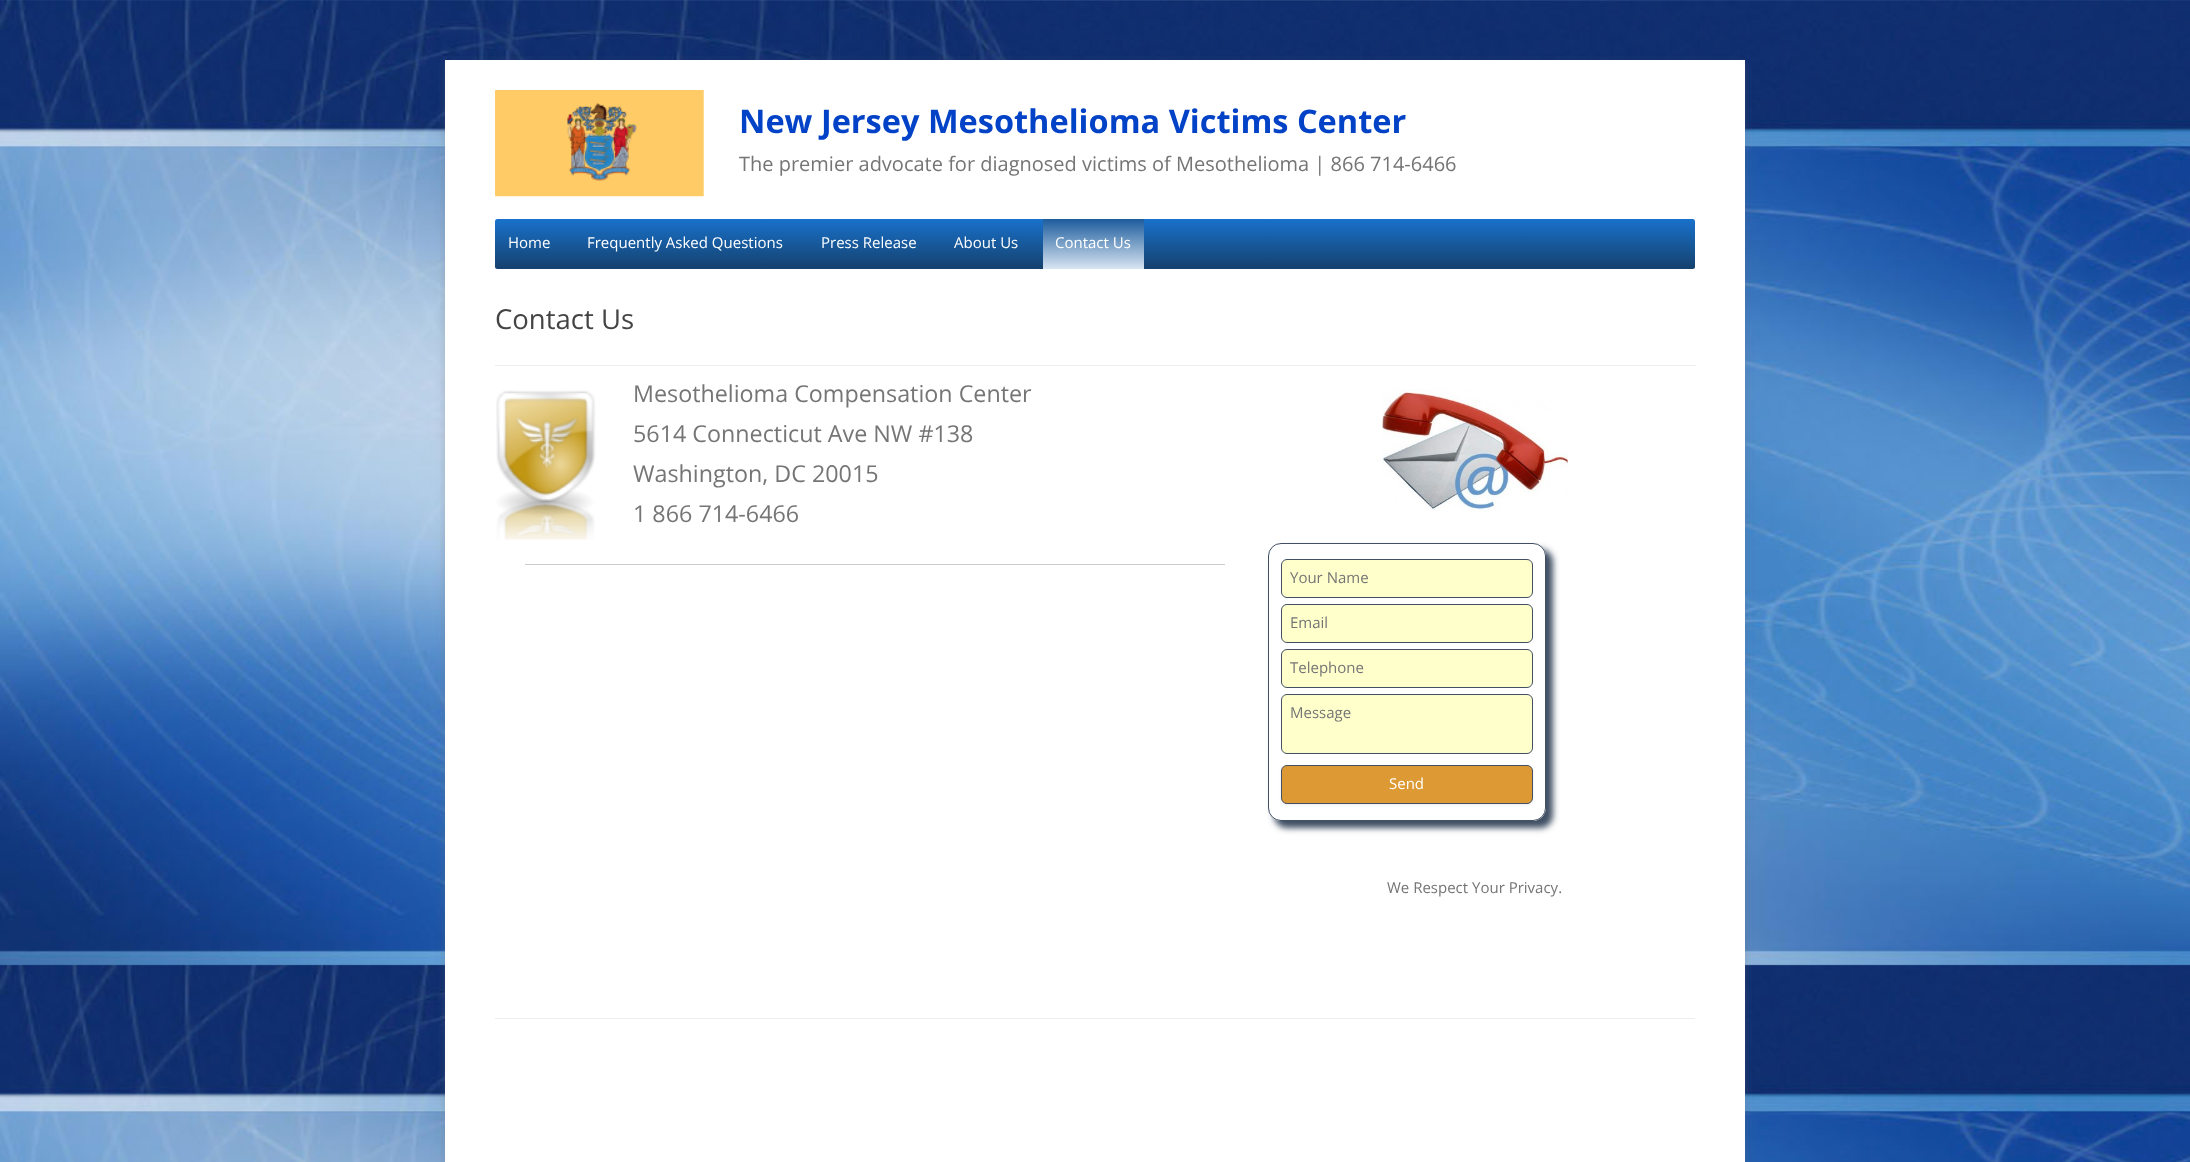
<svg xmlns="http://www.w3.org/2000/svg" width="2190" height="1162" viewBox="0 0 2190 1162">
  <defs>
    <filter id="blur1" x="-50%" y="-200%" width="200%" height="500%"><feGaussianBlur stdDeviation="4"/></filter>
    <linearGradient id="g1" gradientUnits="userSpaceOnUse" x1="1095" y1="219" x2="1095" y2="269"><stop offset="0" stop-color="#1971cb"/><stop offset="1" stop-color="#15416d"/></linearGradient>
    <linearGradient id="g2" gradientUnits="userSpaceOnUse" x1="1093" y1="219" x2="1093" y2="269"><stop offset="0" stop-color="#1d5c9d"/><stop offset="1" stop-color="#d8e5f2"/></linearGradient>
    <clipPath id="clip1"><path d="M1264 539H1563V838H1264ZM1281 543H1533C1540 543 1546 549 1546 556V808C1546 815 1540 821 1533 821H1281C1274 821 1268 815 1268 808V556C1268 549 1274 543 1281 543Z" clip-rule="evenodd"/></clipPath>
    <filter id="blur2" x="-50%" y="-200%" width="200%" height="500%"><feGaussianBlur stdDeviation="3"/></filter>
    <filter id="blur3" x="-50%" y="-200%" width="200%" height="500%"><feGaussianBlur stdDeviation="1"/></filter>
  </defs>
  <rect width="100%" height="100%" fill="#ffffff"/>
  <image x="0" y="0" width="2190" height="1162" href="img1.png"/>
  <rect x="445" y="63" width="1300" height="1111" fill="#646464" fill-opacity="0.3" filter="url(#blur1)"/>
  <rect x="445" y="60" width="1300" height="1102" fill="#ffffff"/>
  <image x="495" y="90" width="209" height="107" href="img2.png"/>
  <text x="739" y="133" font-family="Open Sans" font-size="32.5" font-weight="bold" fill="#0242c7">New Jersey Mesothelioma Victims Center</text>
  <text x="739" y="171" font-family="Open Sans" font-size="20" fill="#757575">The premier advocate for diagnosed victims of Mesothelioma | 866 714-6466</text>
  <rect x="495" y="219" width="1200" height="50" rx="2.5" fill="url(#g1)"/>
  <text x="508" y="248" font-family="Open Sans" font-size="15" fill="#ffffff">Home</text>
  <text x="587" y="248" font-family="Open Sans" font-size="15" fill="#ffffff">Frequently Asked Questions</text>
  <text x="821" y="248" font-family="Open Sans" font-size="15" fill="#ffffff">Press Release</text>
  <text x="954" y="248" font-family="Open Sans" font-size="15" fill="#ffffff">About Us</text>
  <rect x="1043" y="219" width="101" height="50" fill="url(#g2)"/>
  <text x="1055" y="248" font-family="Open Sans" font-size="15" fill="#ffffff">Contact Us</text>
  <text x="495" y="329" font-family="Open Sans" font-size="27.5" fill="#444444">Contact Us</text>
  <rect x="495" y="1018" width="1200" height="1" fill="#ededed"/>
  <image x="496" y="390" width="100" height="150" href="img3.png"/>
  <text x="633" y="402" font-family="Open Sans" font-size="23.3" fill="#757575">Mesothelioma Compensation Center</text>
  <text x="633" y="442" font-family="Open Sans" font-size="23.3" fill="#757575">5614 Connecticut Ave NW #138</text>
  <text x="633" y="482" font-family="Open Sans" font-size="23.3" fill="#757575">Washington, DC 20015</text>
  <text x="633" y="522" font-family="Open Sans" font-size="23.3" fill="#757575">1 866 714-6466</text>
  <rect x="525" y="564" width="700" height="1" fill="#cccccc"/>
  <rect x="495" y="365" width="1201" height="1" fill="#ededed"/>
  <image x="1382" y="389" width="186" height="124" href="img4.png"/>
  <g clip-path="url(#clip1)">
    <rect x="1274" y="549" width="279" height="279" rx="13" fill="#415063" filter="url(#blur2)"/>
  </g>
  <rect x="1268.5" y="543.5" width="277" height="277" rx="12.5" fill="none" stroke="#415063"/>
  <rect x="1281.5" y="559.5" width="251" height="38" rx="5.5" fill="#ffffcc" stroke="#415063"/>
  <text x="1290" y="583" font-family="Open Sans" font-size="15" fill="#757575">Your Name</text>
  <rect x="1281.5" y="604.5" width="251" height="38" rx="5.5" fill="#ffffcc" stroke="#415063"/>
  <text x="1290" y="628" font-family="Open Sans" font-size="15" fill="#757575">Email</text>
  <rect x="1281.5" y="649.5" width="251" height="38" rx="5.5" fill="#ffffcc" stroke="#415063"/>
  <text x="1290" y="673" font-family="Open Sans" font-size="15" fill="#757575">Telephone</text>
  <rect x="1281.5" y="694.5" width="251" height="59" rx="5.5" fill="#ffffcc" stroke="#415063"/>
  <text x="1290" y="718" font-family="Open Sans" font-size="15" fill="#757575">Message</text>
  <rect x="1281" y="766" width="252" height="39" rx="6" fill="#404040" fill-opacity="0.1" filter="url(#blur3)"/>
  <rect x="1281.5" y="765.5" width="251" height="38" rx="5.5" fill="#dd9933" stroke="#415063"/>
  <text x="1389" y="789" font-family="Open Sans" font-size="15" fill="#ffffff">Send</text>
  <text x="1387" y="893" font-family="Open Sans" font-size="15" fill="#757575">We Respect Your Privacy.</text>
</svg>
